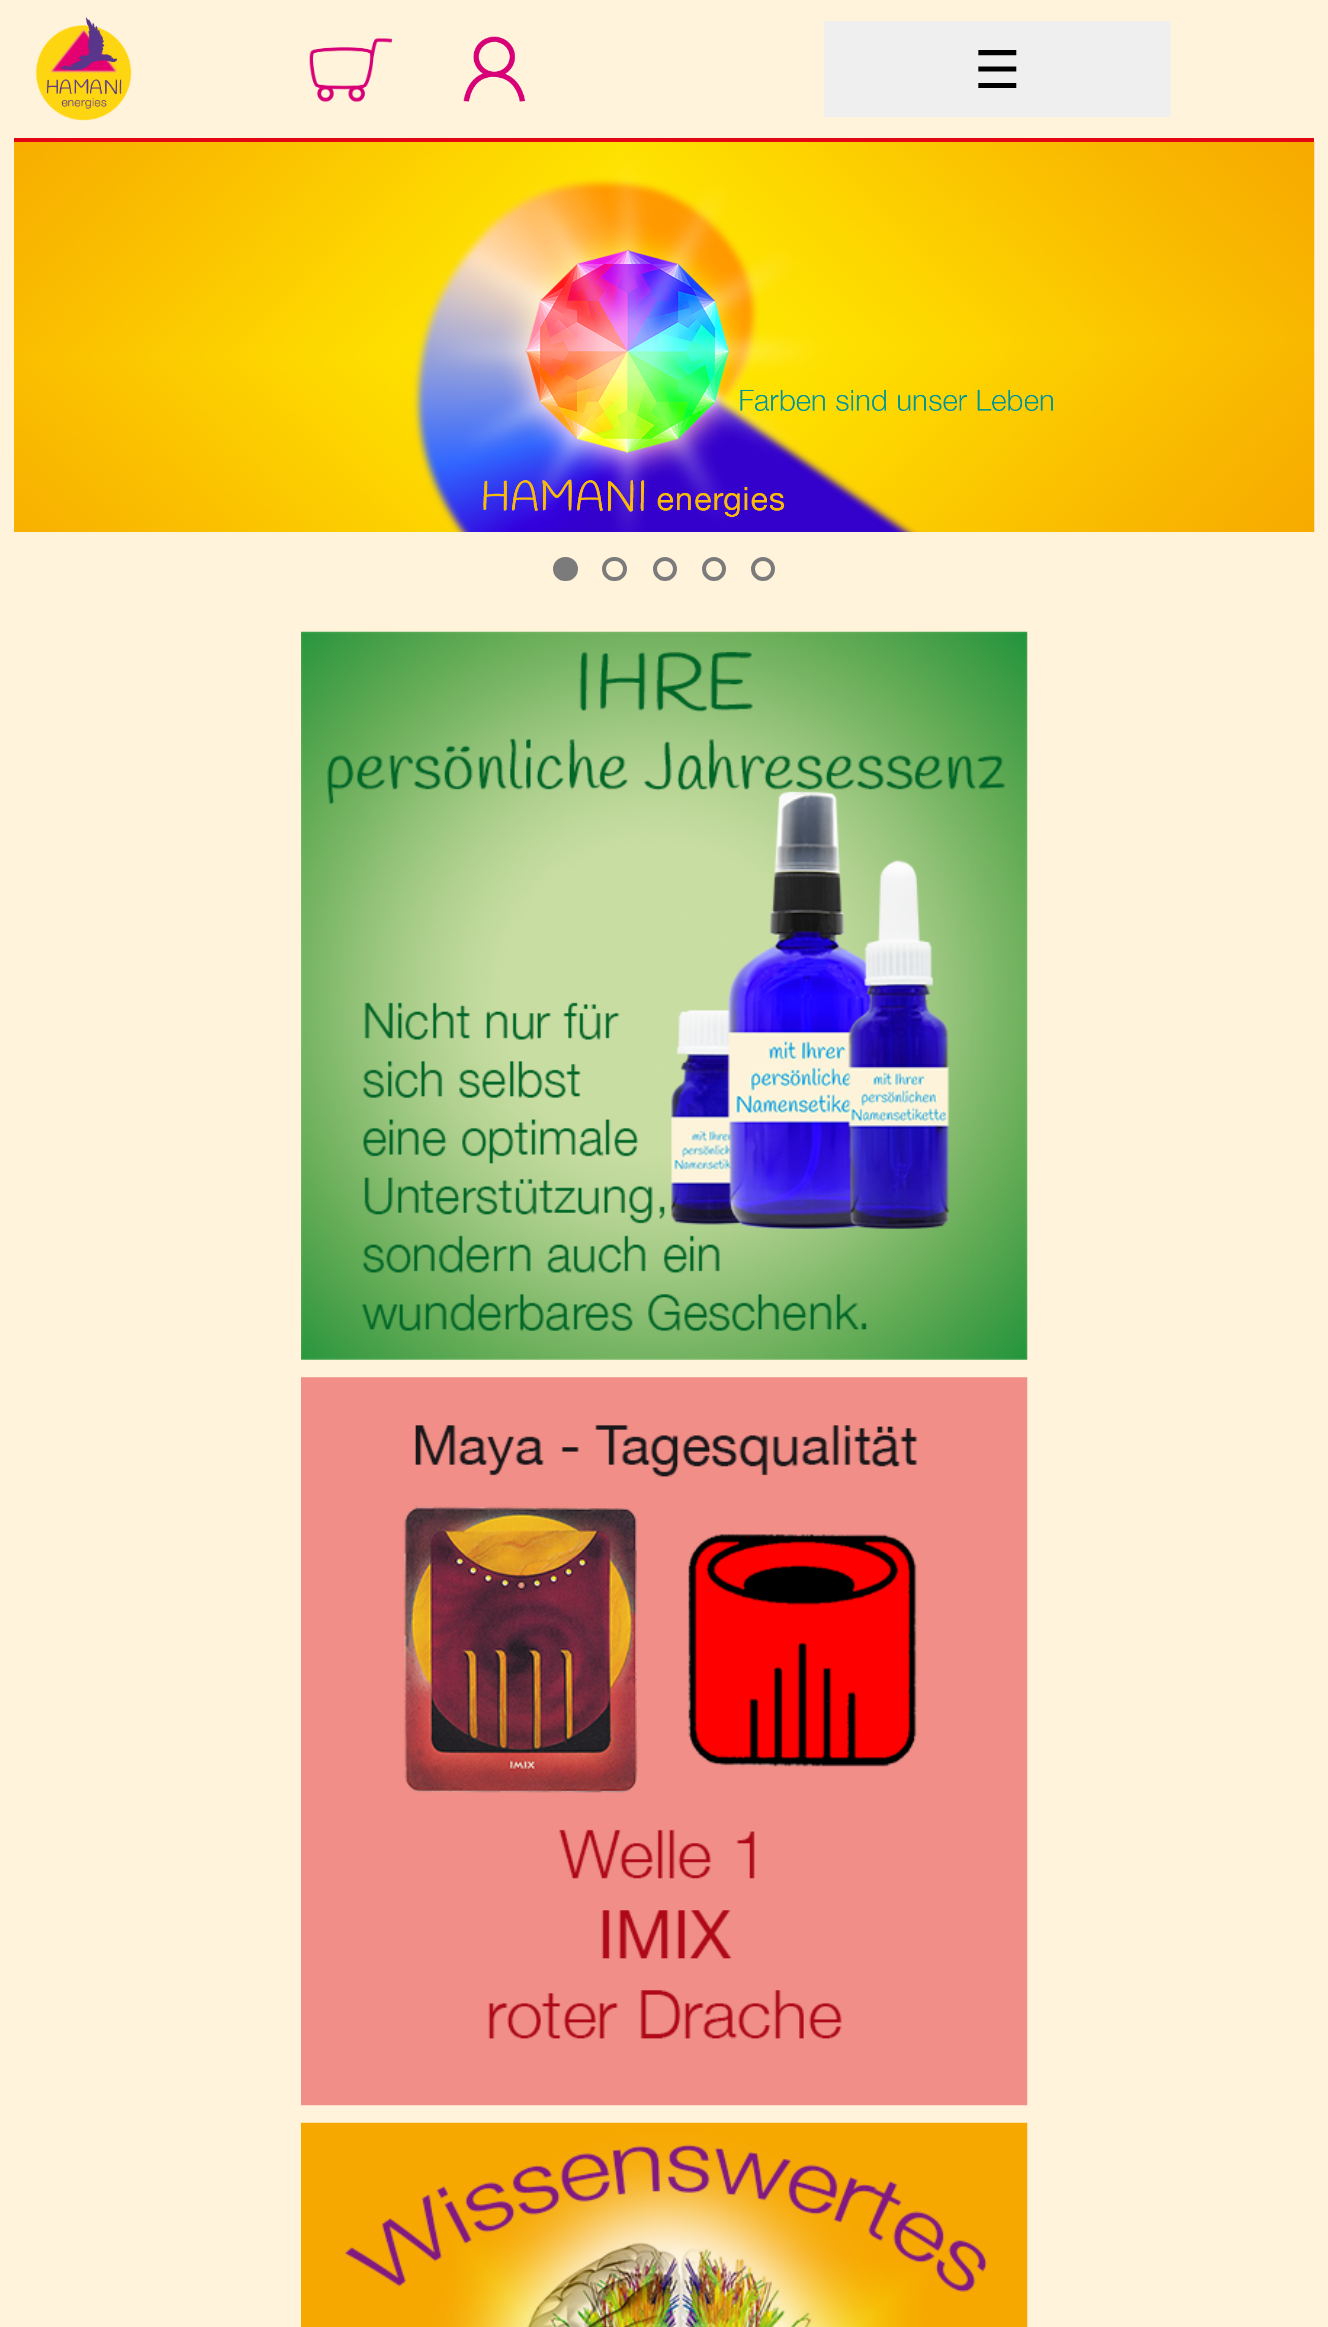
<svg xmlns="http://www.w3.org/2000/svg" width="1328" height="2327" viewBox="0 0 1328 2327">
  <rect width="100%" height="100%" fill="#fff3db"/>
  <image x="14" y="141" width="1301" height="391" href="img4.png"/>
  <rect x="14" y="138" width="1300" height="4" fill="#e30613"/>
  <image x="35" y="17" width="97" height="104" href="img1.png"/>
  <image x="309" y="38" width="83" height="64" href="img2.png"/>
  <image x="463" y="36" width="62" height="66" href="img3.png"/>
  <rect x="824" y="21" width="347" height="96" fill="#efefef"/>
  <text x="974" y="88" font-family="DejaVu Sans" font-size="52" fill="#000000">☰</text>
  <rect x="555" y="559" width="21" height="20" rx="10" fill="#7b7b7b" stroke="#7b7b7b" stroke-width="4"/>
  <rect x="604" y="559" width="21" height="20" rx="10" fill="none" stroke="#7b7b7b" stroke-width="4"/>
  <circle cx="665" cy="569" r="10" fill="none" stroke="#7b7b7b" stroke-width="4"/>
  <circle cx="714" cy="569" r="10" fill="none" stroke="#7b7b7b" stroke-width="4"/>
  <circle cx="763" cy="569" r="10" fill="none" stroke="#7b7b7b" stroke-width="4"/>
  <image x="301" y="631" width="727" height="729" href="img5.png"/>
  <image x="301" y="1377" width="727" height="729" href="img6.png"/>
  <image x="301" y="2122" width="727" height="205" href="img7.png"/>
</svg>
